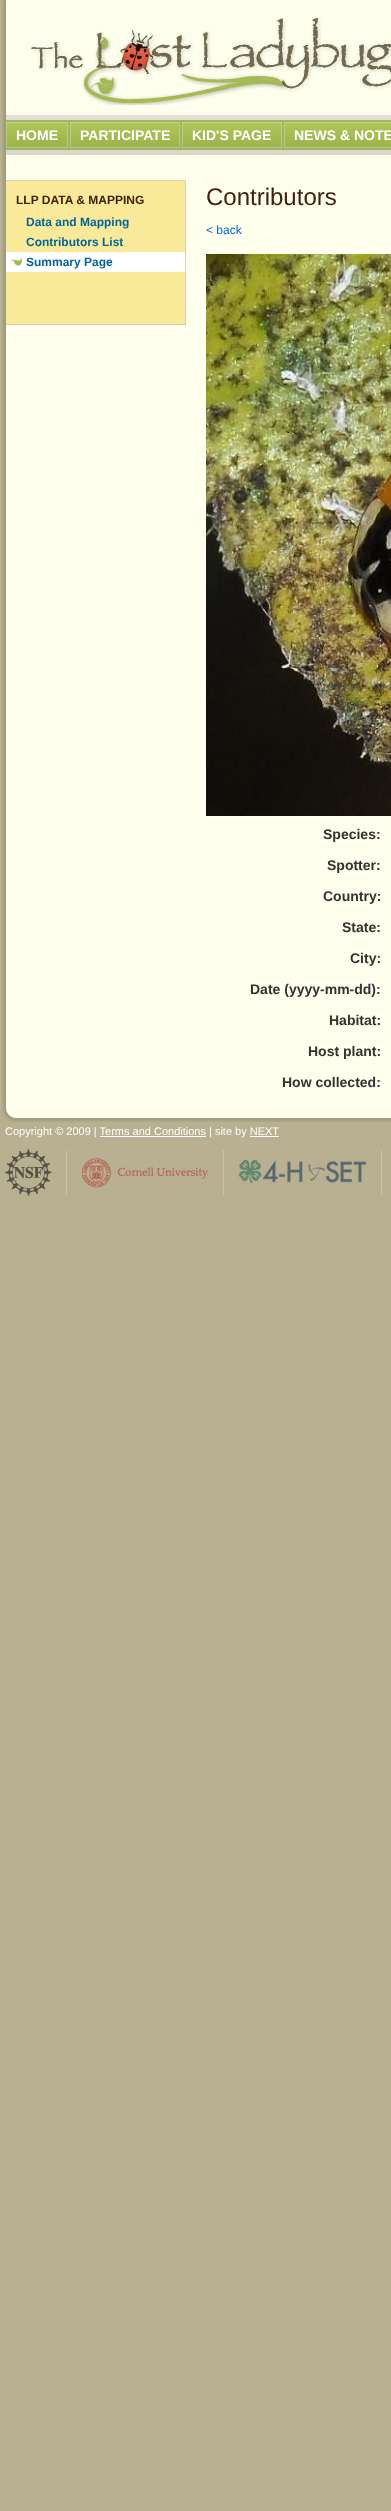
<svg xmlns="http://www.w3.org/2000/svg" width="391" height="2511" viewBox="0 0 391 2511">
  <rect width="100%" height="100%" fill="#b8b090"/>
  <image x="2" y="0" width="389" height="155" href="img1.png"/>
  <image x="31" y="17" width="360" height="88" href="img2.png"/>
  <rect x="6" y="120" width="385" height="30" fill="#a3b26b"/>
  <image x="6" y="122" width="62" height="26" href="img3.png"/>
  <image x="6" y="123" width="1" height="24" href="img4.png"/>
  <text x="16" y="140" font-family="Liberation Sans" font-size="14" font-weight="bold" fill="#ffffff">HOME</text>
  <image x="70" y="122" width="110" height="26" href="img5.png"/>
  <image x="70" y="123" width="1" height="24" href="img4.png"/>
  <text x="80" y="140" font-family="Liberation Sans" font-size="14" font-weight="bold" fill="#ffffff">PARTICIPATE</text>
  <image x="182" y="122" width="100" height="26" href="img6.png"/>
  <image x="182" y="123" width="1" height="24" href="img4.png"/>
  <text x="192" y="140" font-family="Liberation Sans" font-size="14" font-weight="bold" fill="#ffffff">KID'S PAGE</text>
  <image x="284" y="122" width="107" height="26" href="img7.png"/>
  <image x="284" y="123" width="1" height="24" href="img4.png"/>
  <text x="294" y="140" font-family="Liberation Sans" font-size="14" font-weight="bold" fill="#ffffff">NEWS &amp; NOTE</text>
  <image x="2" y="155" width="389" height="950" href="img8.png"/>
  <rect x="6" y="181" width="179" height="143" fill="#f9ea9a"/>
  <rect x="6" y="180" width="180" height="1" fill="#d9d0af"/>
  <rect x="185" y="180" width="1" height="145" fill="#d9d0af"/>
  <rect x="6" y="324" width="180" height="1" fill="#d9d0af"/>
  <text x="16" y="204" font-family="Liberation Sans" font-size="12" font-weight="bold" fill="#43200c">LLP DATA &amp; MAPPING</text>
  <text x="26" y="226" font-family="Liberation Sans" font-size="12" font-weight="bold" fill="#006699">Data and Mapping</text>
  <text x="26" y="246" font-family="Liberation Sans" font-size="12" font-weight="bold" fill="#006699">Contributors List</text>
  <rect x="6" y="252" width="179" height="20" fill="#ffffff"/>
  <image x="10" y="258" width="12" height="8" href="img9.png"/>
  <text x="26" y="266" font-family="Liberation Sans" font-size="12" font-weight="bold" fill="#006699">Summary Page</text>
  <text x="206" y="205" font-family="Liberation Sans" font-size="24" fill="#43200c">Contributors</text>
  <text x="206" y="234" font-family="Liberation Sans" font-size="12" fill="#0066cc">&lt; back</text>
  <image x="206" y="254" width="185" height="562" href="img10.png"/>
  <text x="323" y="839" font-family="Liberation Sans" font-size="14" font-weight="bold" fill="#333333">Species:</text>
  <text x="327" y="870" font-family="Liberation Sans" font-size="14" font-weight="bold" fill="#333333">Spotter:</text>
  <text x="323" y="901" font-family="Liberation Sans" font-size="14" font-weight="bold" fill="#333333">Country:</text>
  <text x="342" y="932" font-family="Liberation Sans" font-size="14" font-weight="bold" fill="#333333">State:</text>
  <text x="350" y="963" font-family="Liberation Sans" font-size="14" font-weight="bold" fill="#333333">City:</text>
  <text x="250" y="994" font-family="Liberation Sans" font-size="14" font-weight="bold" fill="#333333">Date (yyyy-mm-dd):</text>
  <text x="329" y="1025" font-family="Liberation Sans" font-size="14" font-weight="bold" fill="#333333">Habitat:</text>
  <text x="308" y="1056" font-family="Liberation Sans" font-size="14" font-weight="bold" fill="#333333">Host plant:</text>
  <text x="282" y="1087" font-family="Liberation Sans" font-size="14" font-weight="bold" fill="#333333">How collected:</text>
  <image x="2" y="1105" width="389" height="17" href="img11.png"/>
  <text x="5" y="1135" font-family="Liberation Sans" font-size="11" fill="#ffffff">Copyright © 2009 | Terms and Conditions | site by NEXT</text>
  <rect x="100" y="1136" width="106" height="1" fill="#ffffff"/>
  <rect x="250" y="1136" width="29" height="1" fill="#ffffff"/>
  <image x="5" y="1149" width="377" height="47" href="img12.png"/>
</svg>
